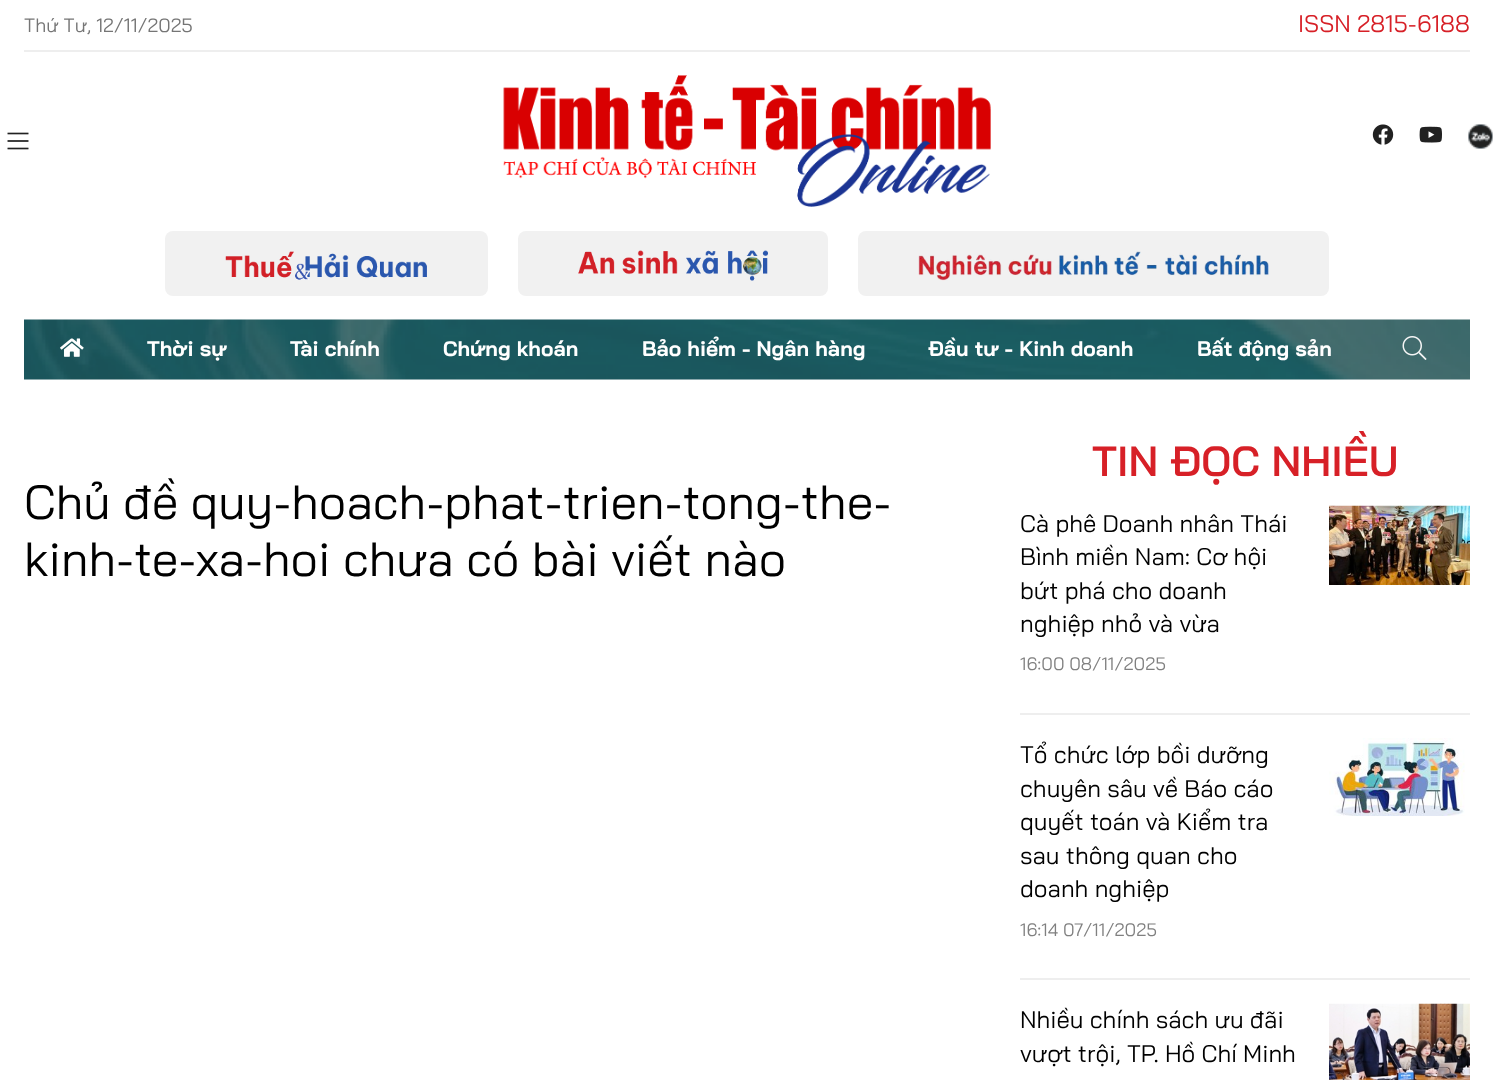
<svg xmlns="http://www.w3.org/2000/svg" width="1494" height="1080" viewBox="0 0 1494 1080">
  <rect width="100%" height="100%" fill="#ffffff"/>
  <text x="24" y="32" font-family="Bai Jamjuree" font-size="19.25" fill="#757575">Thứ Tư, 12/11/2025</text>
  <text x="1298" y="32" font-family="Bai Jamjuree" font-size="24" fill="#d72027">ISSN 2815-6188</text>
  <rect x="24" y="50" width="1446" height="2" fill="#eeeeee"/>
  <image x="7" y="132" width="22" height="18" href="img1.png"/>
  <image x="503" y="75" width="488" height="132" href="img2.png"/>
  <image x="1372" y="124" width="22" height="21" href="img3.png"/>
  <image x="1419" y="126" width="23" height="17" href="img4.png"/>
  <image x="1468" y="124" width="25" height="25" href="img5.png"/>
  <rect x="165" y="231" width="323" height="65" rx="8" fill="#f1f1f1"/>
  <image x="225" y="251" width="202" height="29" href="img6.png"/>
  <rect x="518" y="231" width="310" height="65" rx="8" fill="#f1f1f1"/>
  <image x="578" y="250" width="190" height="31" href="img7.png"/>
  <rect x="858" y="231" width="471" height="65" rx="8" fill="#f1f1f1"/>
  <image x="918" y="251" width="351" height="30" href="img8.png"/>
  <image x="24" y="319" width="1446" height="61" href="img9.png"/>
  <image x="60" y="338" width="24" height="19" href="img10.png"/>
  <text x="147" y="356" font-family="Bai Jamjuree" font-size="21" font-weight="bold" fill="#ffffff">Thời sự</text>
  <text x="290" y="356" font-family="Bai Jamjuree" font-size="21" font-weight="bold" fill="#ffffff">Tài chính</text>
  <text x="443" y="356" font-family="Bai Jamjuree" font-size="21" font-weight="bold" fill="#ffffff">Chứng khoán</text>
  <text x="642" y="356" font-family="Bai Jamjuree" font-size="21" font-weight="bold" fill="#ffffff">Bảo hiểm - Ngân hàng</text>
  <text x="928" y="356" font-family="Bai Jamjuree" font-size="21" font-weight="bold" fill="#ffffff">Đầu tư - Kinh doanh</text>
  <text x="1197" y="356" font-family="Bai Jamjuree" font-size="21" font-weight="bold" fill="#ffffff">Bất động sản</text>
  <image x="1402" y="336" width="25" height="24" href="img11.png"/>
  <text x="24" y="519" font-family="Bai Jamjuree" font-size="48" fill="#000000">Chủ đề quy-hoach-phat-trien-tong-the-</text>
  <text x="24" y="576" font-family="Bai Jamjuree" font-size="48" fill="#000000">kinh-te-xa-hoi chưa có bài viết nào</text>
  <text x="1092" y="476" font-family="Bai Jamjuree" font-size="42" font-weight="600" fill="#d72027">TIN ĐỌC NHIỀU</text>
  <text x="1020" y="532" font-family="Bai Jamjuree" font-size="24" fill="#000000">Cà phê Doanh nhân Thái</text>
  <text x="1020" y="565" font-family="Bai Jamjuree" font-size="24" fill="#000000">Bình miền Nam: Cơ hội</text>
  <text x="1020" y="599" font-family="Bai Jamjuree" font-size="24" fill="#000000">bứt phá cho doanh</text>
  <text x="1020" y="632" font-family="Bai Jamjuree" font-size="24" fill="#000000">nghiệp nhỏ và vừa</text>
  <text x="1020" y="670" font-family="Bai Jamjuree" font-size="18" fill="#808080">16:00 08/11/2025</text>
  <image x="1329" y="505" width="141" height="80" href="img12.png"/>
  <rect x="1020" y="713" width="450" height="2" fill="#eeeeee"/>
  <text x="1020" y="763" font-family="Bai Jamjuree" font-size="24" fill="#000000">Tổ chức lớp bồi dưỡng</text>
  <text x="1020" y="797" font-family="Bai Jamjuree" font-size="24" fill="#000000">chuyên sâu về Báo cáo</text>
  <text x="1020" y="830" font-family="Bai Jamjuree" font-size="24" fill="#000000">quyết toán và Kiểm tra</text>
  <text x="1020" y="864" font-family="Bai Jamjuree" font-size="24" fill="#000000">sau thông quan cho</text>
  <text x="1020" y="897" font-family="Bai Jamjuree" font-size="24" fill="#000000">doanh nghiệp</text>
  <text x="1020" y="936" font-family="Bai Jamjuree" font-size="18" fill="#808080">16:14 07/11/2025</text>
  <image x="1329" y="738" width="141" height="78" href="img13.png"/>
  <rect x="1020" y="978" width="450" height="2" fill="#eeeeee"/>
  <text x="1020" y="1028" font-family="Bai Jamjuree" font-size="24" fill="#000000">Nhiều chính sách ưu đãi</text>
  <text x="1020" y="1062" font-family="Bai Jamjuree" font-size="24" fill="#000000">vượt trội, TP. Hồ Chí Minh</text>
  <image x="1329" y="1003" width="141" height="77" href="img14.png"/>
</svg>
